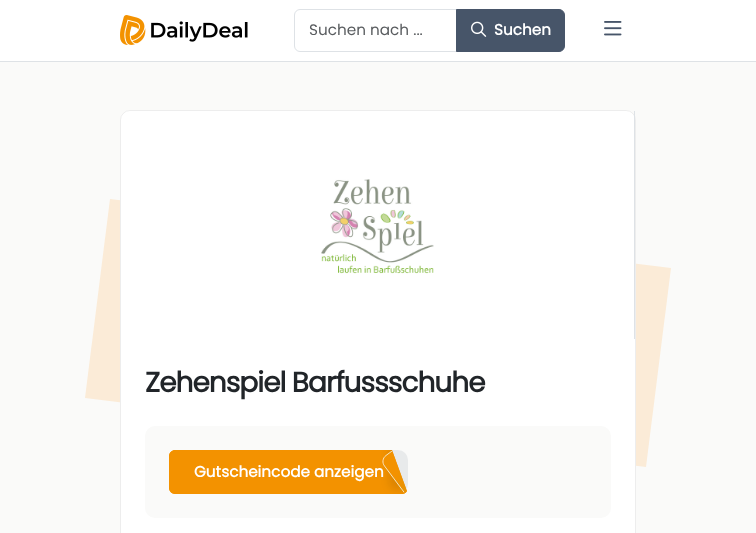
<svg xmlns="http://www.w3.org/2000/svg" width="756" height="533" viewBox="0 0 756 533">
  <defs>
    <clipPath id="clip1"><path d="M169 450H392L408 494H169Z"/></clipPath>
    <clipPath id="clip2"><path d="M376 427H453V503H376ZM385.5 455L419.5 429.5L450 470L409.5 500L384 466.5C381.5 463 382 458 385.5 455Z" clip-rule="evenodd"/></clipPath>
    <filter id="blur1" x="-50%" y="-200%" width="200%" height="500%"><feGaussianBlur stdDeviation="4"/></filter>
    <clipPath id="clip3"><rect x="170" y="451" width="237" height="42" rx="5"/></clipPath>
  </defs>
  <rect width="100%" height="100%" fill="#fafaf9"/>
  <rect x="0" y="0" width="756" height="61" fill="#ffffff"/>
  <rect x="0" y="61" width="756" height="1" fill="#dee2e6"/>
  <image x="120" y="15" width="128" height="30" href="img1.png"/>
  <path d="M300 9.5H456.5V51.5H300C297 51.5 294.5 49 294.5 46V15C294.5 12 297 9.5 300 9.5Z" fill="none" stroke="#dee2e6"/>
  <text x="309" y="35" font-family="Poppins" font-size="15.25" fill="#595c5f">Suchen nach ...</text>
  <path d="M456.5 9.5H559C562 9.5 564.5 12 564.5 15V46C564.5 49 562 51.5 559 51.5H456.5Z" fill="#475569" stroke="#475569"/>
  <image x="471" y="21" width="16" height="16" href="img2.png"/>
  <text x="494" y="35" font-family="Poppins" font-size="15.25" font-weight="bold" fill="#ffffff">Suchen</text>
  <image x="604" y="21" width="18" height="15" href="img3.png"/>
  <path d="M110 199L671 268L646 467L85 398Z" fill="#fbebd7"/>
  <rect x="120" y="110" width="516" height="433" rx="10" fill="#ffffff"/>
  <rect x="120.5" y="110.5" width="515" height="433" rx="9.5" fill="none" stroke="#000000" stroke-opacity="0.07"/>
  <rect x="634" y="111" width="1" height="228" fill="#dee2e6"/>
  <image x="321" y="179" width="113" height="95" href="img4.png"/>
  <text x="145" y="392" font-family="Poppins" font-size="28" font-weight="bold" letter-spacing="-1" fill="#212529">Zehenspiel Barfussschuhe</text>
  <rect x="145" y="426" width="466" height="92" rx="10" fill="#fafaf9"/>
  <rect x="169" y="450" width="239" height="44" rx="10" fill="#e8eaeb"/>
  <path d="M169 456V488C169 491 172 494 175 494H402C404 494 406 493 407 491L392 450H174C171 451 169 453 169 456Z" fill="#f39200"/>
  <path d="M175 451H392V450H174C171 451 169 453 169 456V488C169 491 172 494 175 494H402C404 494 406 493 407 491L406 490C406 492 404 493 402 493H175C172 493 170 491 170 488V456C170 453 172 451 175 451Z" fill="#f39200"/>
  <text x="194" y="477" font-family="Poppins" font-size="15.25" font-weight="bold" fill="#ffffff">Gutscheincode anzeigen</text>
  <g clip-path="url(#clip1)">
    <g clip-path="url(#clip2)">
      <rect x="389" y="440" width="51" height="50" rx="8" fill="#000000" fill-opacity="0.1" filter="url(#blur1)"/>
    </g>
  </g>
  <image x="382" y="451" width="25" height="42" href="img5.png"/>
  <g clip-path="url(#clip3)">
    <path d="M386 455.5L419.5 430.5L449 470L409.5 499.5L384.5 466C382 463 382.5 458 386 455.5Z" fill="none" stroke="#ffffff" stroke-opacity="0.75"/>
  </g>
</svg>
